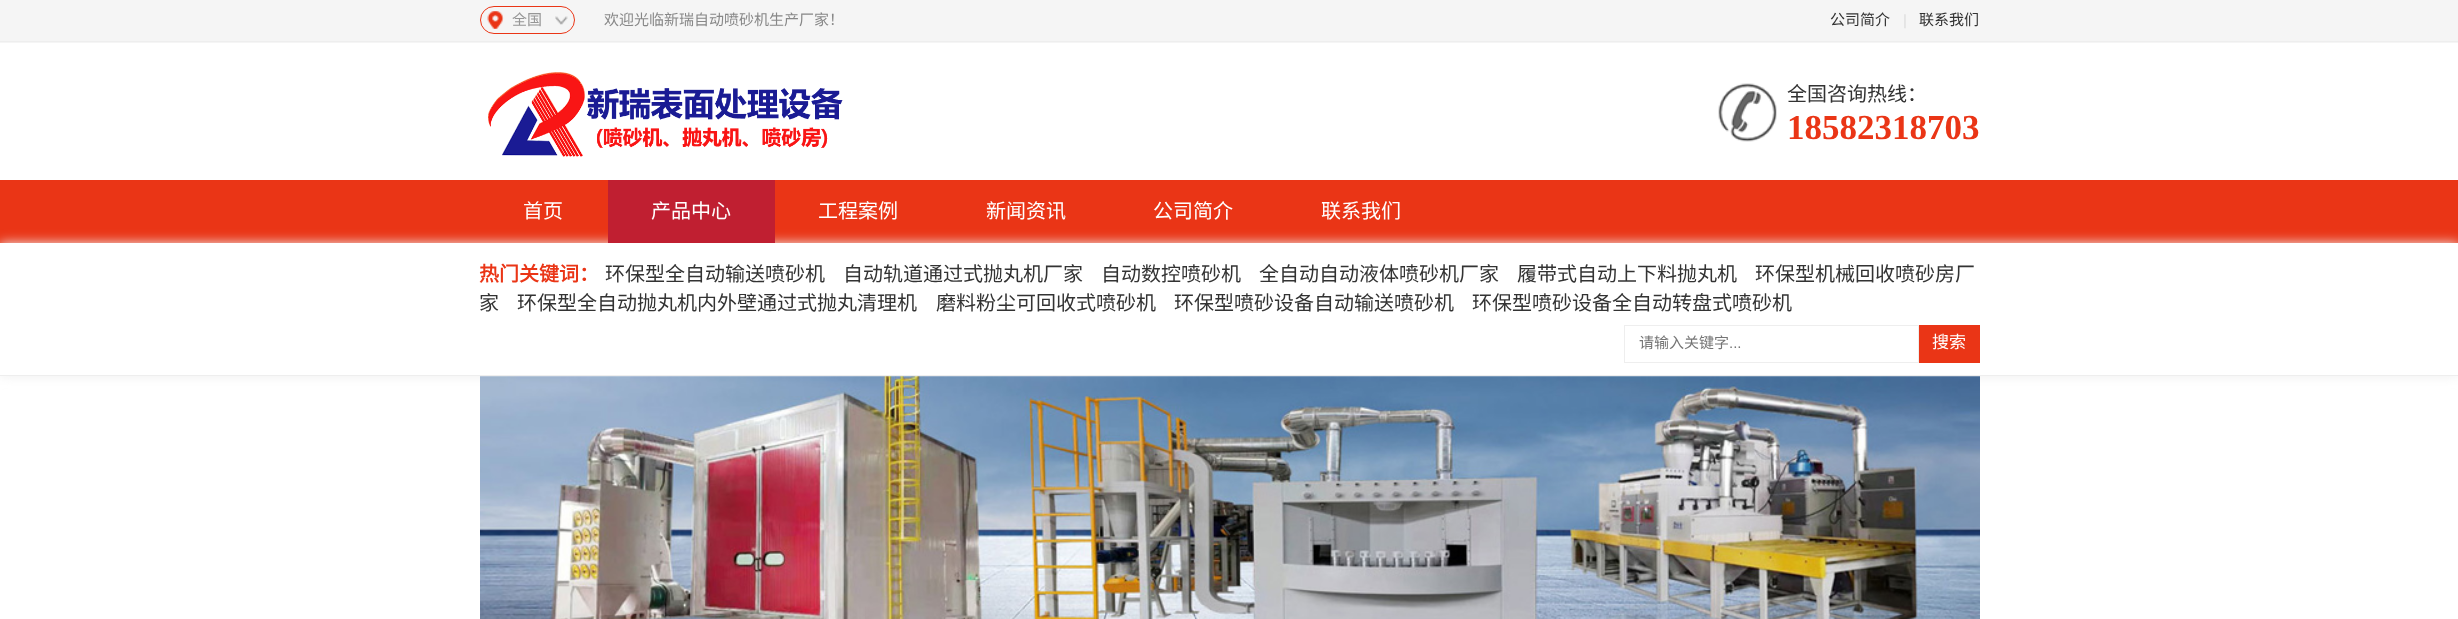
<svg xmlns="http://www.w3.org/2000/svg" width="2458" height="619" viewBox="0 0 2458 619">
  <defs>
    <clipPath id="clip1"><path d="M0 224H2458V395H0ZM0 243H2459V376H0Z" clip-rule="evenodd"/></clipPath>
    <filter id="blur1" x="-50%" y="-200%" width="200%" height="500%"><feGaussianBlur stdDeviation="6"/></filter>
  </defs>
  <rect width="100%" height="100%" fill="#ffffff"/>
  <rect x="0" y="0" width="2458" height="43" fill="#f5f5f5"/>
  <rect x="0" y="41" width="2458" height="1" fill="#eeeeee"/>
  <rect x="480.5" y="6.5" width="94" height="27" rx="13.5" fill="none" stroke="#ea3516"/>
  <image x="487" y="11" width="81" height="18" href="img1.png"/>
  <text x="512" y="25" font-family="Noto Sans CJK SC" font-size="15" fill="#969696">全国</text>
  <text x="604" y="25" font-family="Noto Sans CJK SC" font-size="15" fill="#888888">欢迎光临新瑞自动喷砂机生产厂家！</text>
  <text x="1830" y="25" font-family="Noto Sans CJK SC" font-size="15" fill="#333333">公司简介</text>
  <text x="1903" y="25" font-family="Liberation Sans" font-size="15" fill="#dddddd">|</text>
  <text x="1919" y="25" font-family="Noto Sans CJK SC" font-size="15" fill="#333333">联系我们</text>
  <image x="488" y="72" width="355" height="85" href="img2.png"/>
  <image x="1718" y="83" width="59" height="59" href="img3.png"/>
  <text x="1787" y="101" font-family="Noto Sans CJK SC" font-size="20" fill="#333333">全国咨询热线：</text>
  <text x="1787" y="139" font-family="Liberation Serif" font-size="35" font-weight="bold" fill="#ea3516">18582318703</text>
  <rect x="0" y="180" width="2458" height="63" fill="#ea3516"/>
  <text x="523" y="218" font-family="Noto Sans CJK SC" font-size="20" fill="#ffffff">首页</text>
  <g clip-path="url(#clip1)">
    <rect x="0" y="243" width="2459" height="133" fill="#eeeeee" filter="url(#blur1)"/>
  </g>
  <rect x="608" y="180" width="167" height="63" fill="#c01f31"/>
  <text x="651" y="218" font-family="Noto Sans CJK SC" font-size="20" fill="#ffffff">产品中心</text>
  <text x="818" y="218" font-family="Noto Sans CJK SC" font-size="20" fill="#ffffff">工程案例</text>
  <text x="986" y="218" font-family="Noto Sans CJK SC" font-size="20" fill="#ffffff">新闻资讯</text>
  <text x="1153" y="218" font-family="Noto Sans CJK SC" font-size="20" fill="#ffffff">公司简介</text>
  <text x="1321" y="218" font-family="Noto Sans CJK SC" font-size="20" fill="#ffffff">联系我们</text>
  <rect x="0" y="375" width="2458" height="1" fill="#eeeeee"/>
  <text x="479" y="281" font-family="Noto Sans CJK SC" font-size="20" font-weight="bold" fill="#ea3516">热门关键词：</text>
  <text x="605" y="281" font-family="Noto Sans CJK SC" font-size="20" fill="#333333">环保型全自动输送喷砂机</text>
  <text x="843" y="281" font-family="Noto Sans CJK SC" font-size="20" fill="#333333">自动轨道通过式抛丸机厂家</text>
  <text x="1101" y="281" font-family="Noto Sans CJK SC" font-size="20" fill="#333333">自动数控喷砂机</text>
  <text x="1259" y="281" font-family="Noto Sans CJK SC" font-size="20" fill="#333333">全自动自动液体喷砂机厂家</text>
  <text x="1517" y="281" font-family="Noto Sans CJK SC" font-size="20" fill="#333333">履带式自动上下料抛丸机</text>
  <text x="1755" y="281" font-family="Noto Sans CJK SC" font-size="20" fill="#333333">环保型机械回收喷砂房厂</text>
  <text x="479" y="310" font-family="Noto Sans CJK SC" font-size="20" fill="#333333">家</text>
  <text x="517" y="310" font-family="Noto Sans CJK SC" font-size="20" fill="#333333">环保型全自动抛丸机内外壁通过式抛丸清理机</text>
  <text x="936" y="310" font-family="Noto Sans CJK SC" font-size="20" fill="#333333">磨料粉尘可回收式喷砂机</text>
  <text x="1174" y="310" font-family="Noto Sans CJK SC" font-size="20" fill="#333333">环保型喷砂设备自动输送喷砂机</text>
  <text x="1472" y="310" font-family="Noto Sans CJK SC" font-size="20" fill="#333333">环保型喷砂设备全自动转盘式喷砂机</text>
  <rect x="1624.5" y="325.5" width="294" height="37" fill="none" stroke="#eeeeee"/>
  <text x="1639" y="348" font-family="Noto Sans CJK SC" font-size="15" fill="#757575">请输入关键字</text>
  <text x="1729" y="348" font-family="Liberation Sans" font-size="15" fill="#757575">...</text>
  <rect x="1919" y="325" width="61" height="38" fill="#ea3516"/>
  <text x="1932" y="348" font-family="Noto Sans CJK SC" font-size="17" fill="#ffffff">搜索</text>
  <image x="480" y="376" width="1500" height="243" href="img4.png"/>
</svg>
